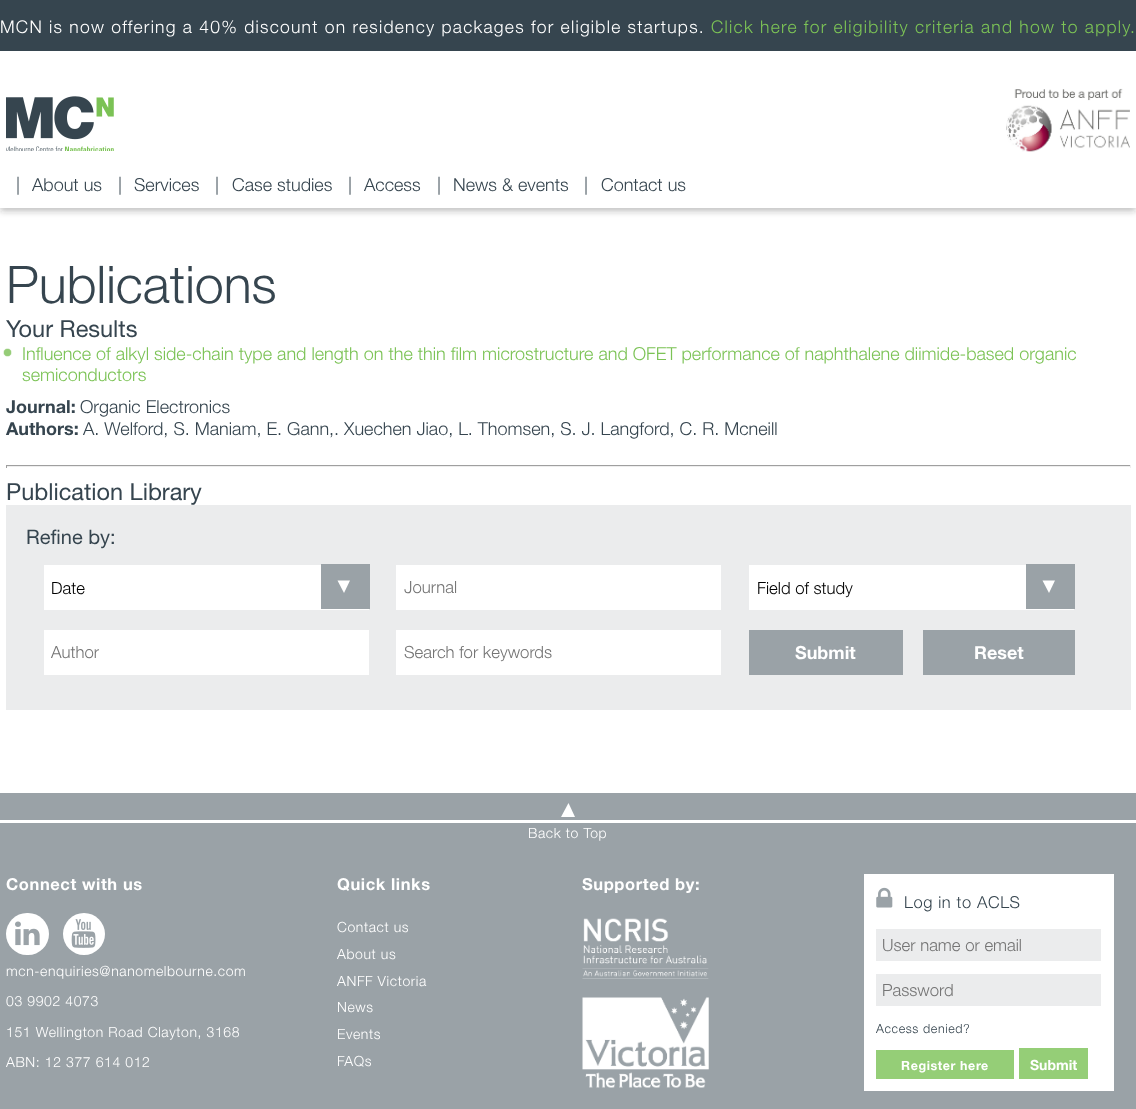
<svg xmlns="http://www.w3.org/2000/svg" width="1136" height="1109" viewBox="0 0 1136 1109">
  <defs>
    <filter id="blur1" x="-50%" y="-200%" width="200%" height="500%"><feGaussianBlur stdDeviation="3"/></filter>
  </defs>
  <rect width="100%" height="100%" fill="#9aa2a7"/>
  <rect x="0" y="208" width="1136" height="585" fill="#ffffff"/>
  <rect x="0" y="4" width="1136" height="207" fill="#323232" fill-opacity="0.3" filter="url(#blur1)"/>
  <rect x="0" y="51" width="1136" height="157" fill="#ffffff"/>
  <rect x="0" y="0" width="1136" height="51" fill="#36454f"/>
  <text x="0" y="33" font-family="Helvetica Neue" font-size="17.5" font-weight="300" letter-spacing="1.25" fill="#ffffff">MCN is now offering a 40% discount on residency packages for eligible startups.</text>
  <text x="711" y="33" font-family="Helvetica Neue" font-size="17.5" font-weight="300" letter-spacing="1.25" fill="#7cc356">Click here for eligibility criteria and how to apply.</text>
  <image x="6" y="96" width="108" height="55" href="img1.png"/>
  <image x="1006" y="88" width="124" height="64" href="img2.png"/>
  <text x="16" y="191" font-family="Helvetica Neue" font-size="18" font-weight="300" fill="#36454f">|</text>
  <text x="32" y="191" font-family="Helvetica Neue" font-size="18" font-weight="300" fill="#36454f">About us</text>
  <text x="118" y="191" font-family="Helvetica Neue" font-size="18" font-weight="300" fill="#36454f">|</text>
  <text x="134" y="191" font-family="Helvetica Neue" font-size="18" font-weight="300" fill="#36454f">Services</text>
  <text x="215" y="191" font-family="Helvetica Neue" font-size="18" font-weight="300" fill="#36454f">|</text>
  <text x="232" y="191" font-family="Helvetica Neue" font-size="18" font-weight="300" fill="#36454f">Case studies</text>
  <text x="348" y="191" font-family="Helvetica Neue" font-size="18" font-weight="300" fill="#36454f">|</text>
  <text x="364" y="191" font-family="Helvetica Neue" font-size="18" font-weight="300" fill="#36454f">Access</text>
  <text x="437" y="191" font-family="Helvetica Neue" font-size="18" font-weight="300" fill="#36454f">|</text>
  <text x="453" y="191" font-family="Helvetica Neue" font-size="18" font-weight="300" fill="#36454f">News &amp; events</text>
  <text x="584" y="191" font-family="Helvetica Neue" font-size="18" font-weight="300" fill="#36454f">|</text>
  <text x="601" y="191" font-family="Helvetica Neue" font-size="18" font-weight="300" fill="#36454f">Contact us</text>
  <text x="6" y="303" font-family="Helvetica Neue" font-size="52" font-weight="300" fill="#36454f">Publications</text>
  <text x="6" y="337" font-family="Helvetica Neue" font-size="23.5" fill="#36454f">Your Results</text>
  <image x="3" y="348" width="9" height="9" href="img3.png"/>
  <text x="22" y="360" font-family="Helvetica Neue" font-size="18" font-weight="300" fill="#7cc356">Influence of alkyl side-chain type and length on the thin film microstructure and OFET performance of naphthalene diimide-based organic</text>
  <text x="22" y="381" font-family="Helvetica Neue" font-size="18" font-weight="300" fill="#7cc356">semiconductors</text>
  <text x="6" y="413" font-family="Helvetica Neue" font-size="18" font-weight="bold" fill="#36454f">Journal:</text>
  <text x="80" y="413" font-family="Helvetica Neue" font-size="18" font-weight="300" fill="#36454f">Organic Electronics</text>
  <text x="6" y="435" font-family="Helvetica Neue" font-size="18" font-weight="bold" fill="#36454f">Authors:</text>
  <text x="83" y="435" font-family="Helvetica Neue" font-size="18" font-weight="300" fill="#36454f">A. Welford, S. Maniam, E. Gann,. Xuechen Jiao, L. Thomsen, S. J. Langford, C. R. Mcneill</text>
  <rect x="6" y="465" width="1125" height="1" fill="#9f9f9f"/>
  <rect x="1130" y="465" width="1" height="3" fill="#eeeeee"/>
  <rect x="6" y="466" width="1125" height="1" fill="#eeeeee"/>
  <rect x="6" y="465" width="1" height="3" fill="#9f9f9f"/>
  <text x="6" y="500" font-family="Helvetica Neue" font-size="23.5" fill="#36454f">Publication Library</text>
  <rect x="6" y="505" width="1125" height="205" fill="#ebeced"/>
  <text x="26" y="544" font-family="Helvetica Neue" font-size="20" fill="#36454f">Refine by:</text>
  <rect x="44" y="565" width="325" height="45" fill="#ffffff"/>
  <text x="51" y="594" font-family="Helvetica Neue" font-size="16.75" font-weight="300" fill="#000000">Date</text>
  <rect x="321" y="564" width="49" height="45" fill="#9aa2a7"/>
  <path d="M350 580.5L344 593L337.5 580.5Z" fill="#ffffff"/>
  <rect x="44" y="630" width="325" height="45" fill="#ffffff"/>
  <text x="51" y="658" font-family="Helvetica Neue" font-size="16.75" font-weight="300" fill="#757575">Author</text>
  <rect x="396" y="565" width="325" height="45" fill="#ffffff"/>
  <text x="404" y="593" font-family="Helvetica Neue" font-size="16.75" font-weight="300" fill="#757575">Journal</text>
  <rect x="396" y="630" width="325" height="45" fill="#ffffff"/>
  <text x="404" y="658" font-family="Helvetica Neue" font-size="16.75" font-weight="300" fill="#757575">Search for keywords</text>
  <rect x="749" y="565" width="325" height="45" fill="#ffffff"/>
  <text x="757" y="594" font-family="Helvetica Neue" font-size="16.75" font-weight="300" fill="#000000">Field of study</text>
  <rect x="1026" y="564" width="49" height="45" fill="#9aa2a7"/>
  <path d="M1055 580.5L1049 593L1042.5 580.5Z" fill="#ffffff"/>
  <rect x="749" y="630" width="154" height="45" fill="#9aa2a7"/>
  <text x="795" y="659" font-family="Helvetica Neue" font-size="18" font-weight="bold" fill="#ffffff">Submit</text>
  <rect x="923" y="630" width="152" height="45" fill="#9aa2a7"/>
  <text x="974" y="659" font-family="Helvetica Neue" font-size="18" font-weight="bold" fill="#ffffff">Reset</text>
  <rect x="0" y="820" width="1136" height="3" fill="#ffffff"/>
  <path d="M561 817L568.5 803L575 817Z" fill="#ffffff"/>
  <text x="528" y="838" font-family="Helvetica Neue" font-size="14" font-weight="300" letter-spacing="0.6" fill="#ffffff">Back to Top</text>
  <text x="6" y="890" font-family="Helvetica Neue" font-size="16.5" font-weight="bold" letter-spacing="0.6" fill="#ffffff">Connect with us</text>
  <rect x="6" y="913" width="43" height="42" rx="21" fill="#ffffff"/>
  <image x="15" y="921" width="25" height="25" href="img4.png"/>
  <circle cx="84" cy="934" r="21" fill="#ffffff"/>
  <image x="71" y="919" width="25" height="29" href="img5.png"/>
  <text x="6" y="976" font-family="Helvetica Neue" font-size="14" font-weight="300" letter-spacing="0.6" fill="#ffffff">mcn-enquiries@nanomelbourne.com</text>
  <text x="6" y="1006" font-family="Helvetica Neue" font-size="14" font-weight="300" letter-spacing="0.6" fill="#ffffff">03 9902 4073</text>
  <text x="6" y="1037" font-family="Helvetica Neue" font-size="14" font-weight="300" letter-spacing="0.6" fill="#ffffff">151 Wellington Road Clayton, 3168</text>
  <text x="6" y="1067" font-family="Helvetica Neue" font-size="14" font-weight="300" letter-spacing="0.6" fill="#ffffff">ABN: 12 377 614 012</text>
  <text x="337" y="890" font-family="Helvetica Neue" font-size="16.5" font-weight="bold" letter-spacing="0.6" fill="#ffffff">Quick links</text>
  <text x="337" y="932" font-family="Helvetica Neue" font-size="14" font-weight="300" letter-spacing="0.6" fill="#ffffff">Contact us</text>
  <text x="337" y="959" font-family="Helvetica Neue" font-size="14" font-weight="300" letter-spacing="0.6" fill="#ffffff">About us</text>
  <text x="337" y="986" font-family="Helvetica Neue" font-size="14" font-weight="300" letter-spacing="0.6" fill="#ffffff">ANFF Victoria</text>
  <text x="337" y="1012" font-family="Helvetica Neue" font-size="14" font-weight="300" letter-spacing="0.6" fill="#ffffff">News</text>
  <text x="337" y="1039" font-family="Helvetica Neue" font-size="14" font-weight="300" letter-spacing="0.6" fill="#ffffff">Events</text>
  <text x="337" y="1066" font-family="Helvetica Neue" font-size="14" font-weight="300" letter-spacing="0.6" fill="#ffffff">FAQs</text>
  <text x="582" y="890" font-family="Helvetica Neue" font-size="16.5" font-weight="bold" letter-spacing="0.6" fill="#ffffff">Supported by:</text>
  <image x="582" y="918" width="127" height="61" href="img6.png"/>
  <image x="582" y="997" width="127" height="91" href="img7.png"/>
  <rect x="864" y="874" width="250" height="217" fill="#ffffff"/>
  <image x="876" y="887" width="17" height="21" href="img8.png"/>
  <text x="904" y="908" font-family="Helvetica Neue" font-size="16.5" font-weight="300" letter-spacing="0.6" fill="#36454f">Log in to ACLS</text>
  <rect x="876" y="929" width="225" height="32" fill="#ebeced"/>
  <text x="882" y="951" font-family="Helvetica Neue" font-size="16.75" font-weight="300" fill="#757575">User name or email</text>
  <rect x="876" y="974" width="225" height="32" fill="#ebeced"/>
  <text x="882" y="996" font-family="Helvetica Neue" font-size="16.75" font-weight="300" fill="#757575">Password</text>
  <text x="876" y="1033" font-family="Helvetica Neue" font-size="12.5" font-weight="300" letter-spacing="0.6" fill="#36454f">Access denied?</text>
  <rect x="876" y="1050" width="138" height="29" fill="#95ce77"/>
  <text x="901" y="1070" font-family="Helvetica Neue" font-size="12.5" font-weight="bold" letter-spacing="0.6" fill="#ffffff">Register here</text>
  <rect x="1019" y="1048" width="69" height="31" fill="#95ce77"/>
  <text x="1030" y="1070" font-family="Helvetica Neue" font-size="14" font-weight="bold" fill="#ffffff">Submit</text>
</svg>
